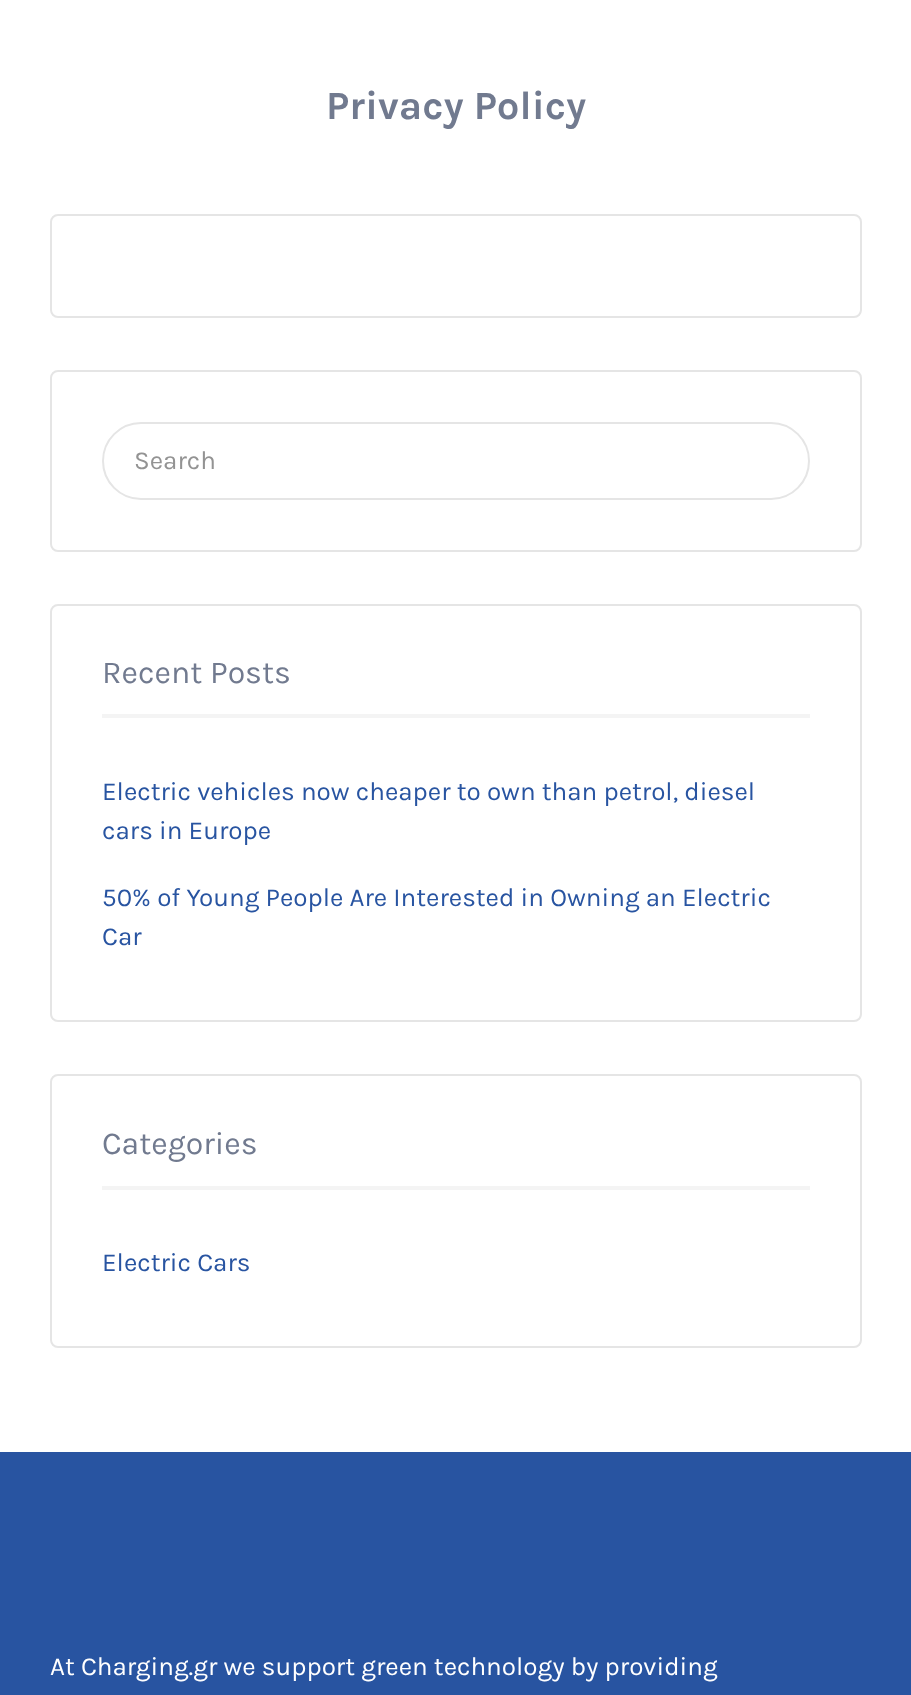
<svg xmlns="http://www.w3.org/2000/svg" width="911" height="1695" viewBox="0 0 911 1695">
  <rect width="100%" height="100%" fill="#ffffff"/>
  <text x="326" y="119" font-family="Karla" font-size="40" font-weight="bold" fill="#717a8f">Privacy Policy</text>
  <rect x="51" y="215" width="810" height="102" rx="7" fill="none" stroke="#e5e5e5" stroke-width="2"/>
  <rect x="51" y="371" width="810" height="180" rx="7" fill="none" stroke="#e5e5e5" stroke-width="2"/>
  <rect x="103" y="423" width="706" height="76" rx="38" fill="none" stroke="#e5e5e5" stroke-width="2"/>
  <text x="134" y="469" font-family="Karla" font-size="26" fill="#939393">Search</text>
  <rect x="51" y="605" width="810" height="416" rx="7" fill="none" stroke="#e5e5e5" stroke-width="2"/>
  <rect x="102" y="714" width="708" height="4" fill="#f4f4f4"/>
  <text x="102" y="683" font-family="Karla" font-size="32" fill="#717a8f">Recent Posts</text>
  <text x="102" y="800" font-family="Karla" font-size="26" fill="#2854a1">Electric vehicles now cheaper to own than petrol, diesel</text>
  <text x="102" y="839" font-family="Karla" font-size="26" fill="#2854a1">cars in Europe</text>
  <text x="102" y="906" font-family="Karla" font-size="26" fill="#2854a1">50% of Young People Are Interested in Owning an Electric</text>
  <text x="102" y="945" font-family="Karla" font-size="26" fill="#2854a1">Car</text>
  <rect x="51" y="1075" width="810" height="272" rx="7" fill="none" stroke="#e5e5e5" stroke-width="2"/>
  <rect x="102" y="1186" width="708" height="4" fill="#f4f4f4"/>
  <text x="102" y="1154" font-family="Karla" font-size="32" fill="#717a8f">Categories</text>
  <text x="102" y="1271" font-family="Karla" font-size="26" fill="#2854a1">Electric Cars</text>
  <rect x="0" y="1452" width="911" height="243" fill="#2854a1"/>
  <text x="50" y="1675" font-family="Karla" font-size="26" fill="#ffffff">At Charging.gr we support green technology by providing</text>
</svg>
